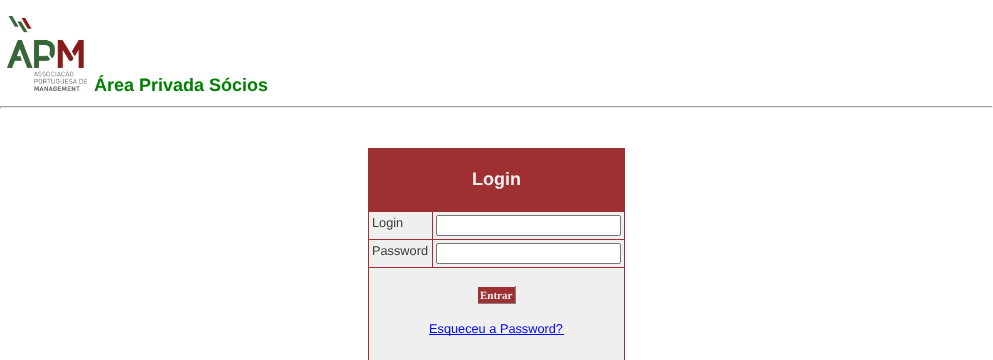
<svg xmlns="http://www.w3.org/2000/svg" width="993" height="360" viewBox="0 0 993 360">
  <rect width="100%" height="100%" fill="#ffffff"/>
  <image x="7" y="16" width="80" height="75" href="img1.png"/>
  <text x="94" y="91" font-family="Liberation Sans" font-size="18" font-weight="bold" fill="#008000">Área Privada Sócios</text>
  <rect x="0" y="106" width="993" height="1" fill="#9f9f9f"/>
  <rect x="992" y="106" width="1" height="2" fill="#eeeeee"/>
  <rect x="0" y="107" width="993" height="1" fill="#eeeeee"/>
  <rect x="0" y="106" width="1" height="2" fill="#9f9f9f"/>
  <rect x="368" y="148" width="1" height="63" fill="#9e2f32"/>
  <rect x="369" y="148" width="255" height="63" fill="#9e2f33"/>
  <text x="472" y="185" font-family="Liberation Sans" font-size="18" font-weight="bold" fill="#eeeeee">Login</text>
  <rect x="624" y="148" width="1" height="63" fill="#9e2f32"/>
  <rect x="368" y="211" width="1" height="149" fill="#9e2f33"/>
  <rect x="369" y="212" width="63" height="27" fill="#efefef"/>
  <rect x="369" y="211" width="256" height="1" fill="#9e2f33"/>
  <rect x="432" y="211" width="1" height="28" fill="#9e2f33"/>
  <text x="372" y="227" font-family="Liberation Sans" font-size="12.75" fill="#3a3a3a">Login</text>
  <rect x="433" y="212" width="191" height="27" fill="#efefef"/>
  <rect x="624" y="211" width="1" height="28" fill="#9e2f33"/>
  <rect x="436.5" y="215.5" width="184" height="20" rx="1.5" fill="#ffffff" stroke="#767676"/>
  <rect x="369" y="240" width="63" height="27" fill="#efefef"/>
  <rect x="369" y="239" width="256" height="1" fill="#9e2f33"/>
  <rect x="432" y="239" width="1" height="28" fill="#9e2f33"/>
  <text x="372" y="255" font-family="Liberation Sans" font-size="12.75" fill="#3a3a3a">Password</text>
  <rect x="433" y="240" width="191" height="27" fill="#efefef"/>
  <rect x="624" y="239" width="1" height="28" fill="#9e2f33"/>
  <rect x="436.5" y="243.5" width="184" height="20" rx="1.5" fill="#ffffff" stroke="#767676"/>
  <rect x="369" y="268" width="255" height="92" fill="#efefef"/>
  <rect x="369" y="267" width="256" height="1" fill="#9e2f33"/>
  <rect x="624" y="267" width="1" height="93" fill="#9e2f33"/>
  <rect x="478" y="287" width="37" height="16" fill="#9e2f33"/>
  <rect x="515" y="286" width="1" height="18" fill="#848284"/>
  <rect x="477" y="303" width="39" height="1" fill="#848284"/>
  <rect x="477" y="303" width="1" height="1" fill="#ededed"/>
  <text x="480" y="299" font-family="Liberation Serif" font-size="11" font-weight="bold" fill="#eeeeee">Entrar</text>
  <rect x="429" y="334" width="135" height="1" fill="#0000ff"/>
  <text x="429" y="333" font-family="Liberation Sans" font-size="12.75" fill="#0000ff">Esqueceu a Password?</text>
</svg>
